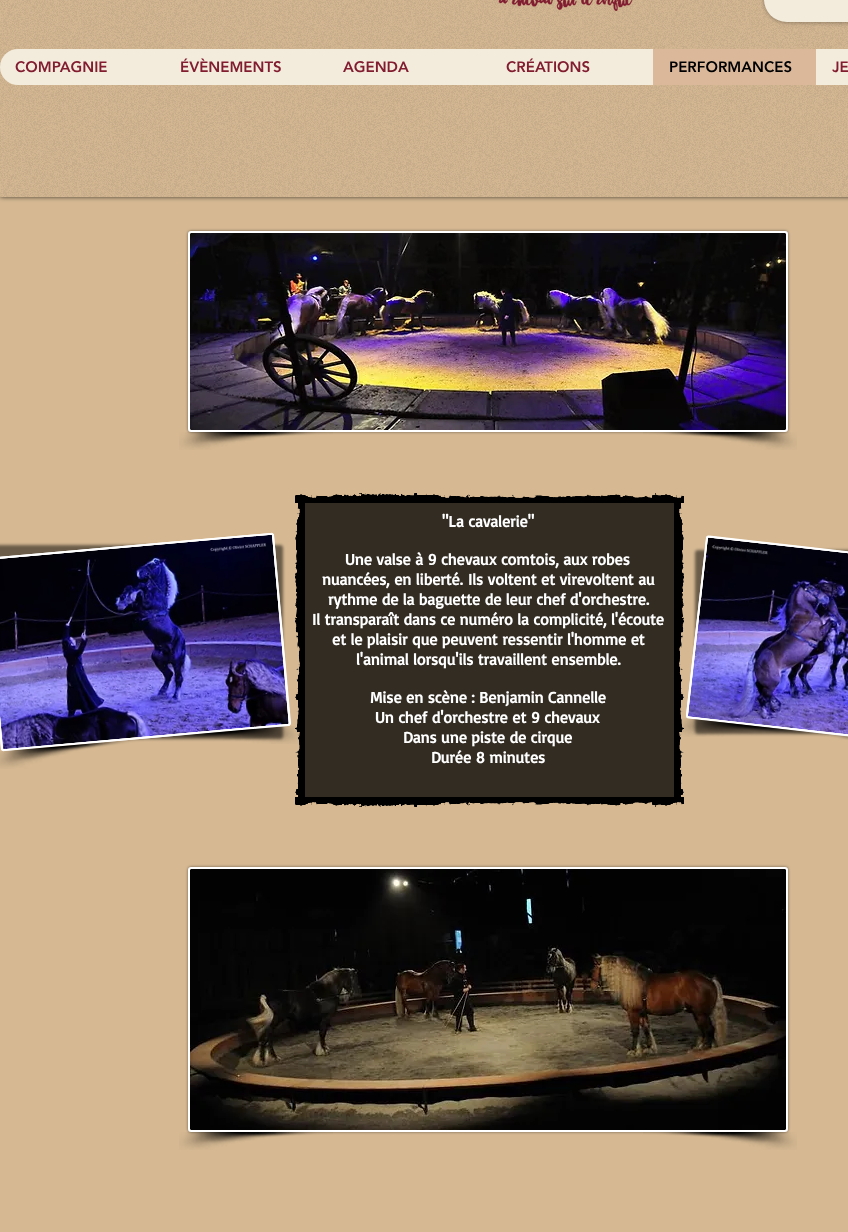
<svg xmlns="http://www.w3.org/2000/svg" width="848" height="1232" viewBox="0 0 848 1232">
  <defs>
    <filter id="blur1" x="-50%" y="-200%" width="200%" height="500%"><feGaussianBlur stdDeviation="2.5"/></filter>
    <filter id="blur2" x="-50%" y="-200%" width="200%" height="500%"><feGaussianBlur stdDeviation="2"/></filter>
    <filter id="blur3" x="-50%" y="-200%" width="200%" height="500%"><feGaussianBlur stdDeviation="1.5"/></filter>
  </defs>
  <rect width="100%" height="100%" fill="#d6b993"/>
  <rect x="0" y="-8" width="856" height="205" fill="#000000" fill-opacity="0.7" filter="url(#blur1)"/>
  <rect x="0" y="0" width="848" height="197" fill="#d4b792"/>
  <image x="0" y="0" width="848" height="197" href="img1.png"/>
  <image x="498" y="0" width="135" height="11" href="img2.png"/>
  <rect x="764" y="-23" width="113" height="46" rx="23" fill="#000000" fill-opacity="0.3" filter="url(#blur2)"/>
  <rect x="764" y="-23" width="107" height="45" rx="23" fill="#f3ecdd"/>
  <rect x="0" y="49" width="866" height="36" rx="18" fill="#f3ecdd"/>
  <text x="15" y="72" font-family="'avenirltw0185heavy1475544'" font-size="15" font-weight="900" fill="#821d30">COMPAGNIE</text>
  <text x="180" y="72" font-family="'avenirltw0185heavy1475544'" font-size="15" font-weight="900" fill="#821d30">ÉVÈNEMENTS</text>
  <text x="343" y="72" font-family="'avenirltw0185heavy1475544'" font-size="15" font-weight="900" fill="#821d30">AGENDA</text>
  <text x="506" y="72" font-family="'avenirltw0185heavy1475544'" font-size="15" font-weight="900" fill="#821d30">CRÉATIONS</text>
  <rect x="653" y="49" width="163" height="36" fill="#dbb89a"/>
  <text x="669" y="72" font-family="'avenirltw0185heavy1475544'" font-size="15" font-weight="900" fill="#000000">PERFORMANCES</text>
  <text x="832" y="72" font-family="'avenirltw0185heavy1475544'" font-size="15" font-weight="900" fill="#821d30">JE</text>
  <rect x="188" y="231" width="600" height="201" rx="3" fill="#000000" fill-opacity="0.5" filter="url(#blur3)"/>
  <rect x="189" y="232" width="598" height="199" rx="2" fill="#ffffff" stroke="#ffffff" stroke-width="2"/>
  <image x="190" y="233" width="596" height="197" href="img3.png"/>
  <image x="179" y="432" width="154" height="18" href="img4.png"/>
  <image x="643" y="432" width="154" height="18" href="img5.png"/>
  <rect x="-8" y="545" width="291" height="194" rx="3" fill="#000000" fill-opacity="0.5" filter="url(#blur3)"/>
  <path d="M-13 558L271 533C273 533 274 534 274 535L291 723C291 724 290 726 288 726L4 751C2 751 1 750 1 749L-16 561C-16 560-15 558-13 558Z" fill="#ffffff"/>
  <path d="M-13 559L271 534C272 533.5 273 534.5 273 535.5L289.5 723C290 724 289 725 288 725L4 750C3 750.5 2 749.5 2 748.5L-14.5 561C-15 560-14 559-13 559Z" fill="none" stroke="#ffffff" stroke-width="2"/>
  <image x="0" y="535" width="289" height="214" href="img6.png"/>
  <image x="150" y="726" width="150" height="18" href="img7.png"/>
  <image x="0" y="739" width="144" height="30" href="img8.png"/>
  <rect x="305" y="503" width="369" height="294" fill="#332c23"/>
  <image x="295" y="493" width="389" height="10" href="img9.png"/>
  <image x="295" y="797" width="389" height="10" href="img10.png"/>
  <image x="295" y="503" width="10" height="294" href="img11.png"/>
  <image x="674" y="503" width="10" height="294" href="img12.png"/>
  <text x="442" y="527" font-family="Basic" font-size="16" font-weight="bold" fill="#ffffff">"La cavalerie"</text>
  <text x="345" y="565" font-family="Basic" font-size="16" font-weight="bold" fill="#ffffff">Une valse à 9 chevaux comtois, aux robes</text>
  <text x="322" y="585" font-family="Basic" font-size="16" font-weight="bold" fill="#ffffff">nuancées, en liberté.</text>
  <text x="468" y="585" font-family="Basic" font-size="16" font-weight="bold" fill="#ffffff">Ils voltent et virevoltent au</text>
  <text x="328" y="605" font-family="Basic" font-size="16" font-weight="bold" fill="#ffffff">rythme de la baguette de leur chef d'orchestre.</text>
  <text x="312" y="625" font-family="Basic" font-size="16" font-weight="bold" fill="#ffffff">Il transparaît dans ce numéro la complicité, l'écoute</text>
  <text x="332" y="645" font-family="Basic" font-size="16" font-weight="bold" fill="#ffffff">et le plaisir que peuvent ressentir l'homme et</text>
  <text x="356" y="665" font-family="Basic" font-size="16" font-weight="bold" fill="#ffffff">l'animal lorsqu'ils travaillent ensemble.</text>
  <text x="370" y="703" font-family="Basic" font-size="16" font-weight="bold" fill="#ffffff">Mise en scène : Benjamin Cannelle</text>
  <text x="375" y="723" font-family="Basic" font-size="16" font-weight="bold" fill="#ffffff">Un chef d'orchestre et 9 chevaux</text>
  <text x="403" y="743" font-family="Basic" font-size="16" font-weight="bold" fill="#ffffff">Dans une piste de cirque</text>
  <text x="431" y="763" font-family="Basic" font-size="16" font-weight="bold" fill="#ffffff">Durée 8 minutes</text>
  <rect x="695" y="550" width="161" height="184" rx="3" fill="#000000" fill-opacity="0.5" filter="url(#blur3)"/>
  <path d="M709 536L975 566C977 566 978 567 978 569L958 746C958 747 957 749 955 748L689 718C687 718 686 717 686 715L706 538C706 537 707 535 709 536Z" fill="#ffffff"/>
  <path d="M709 536.5L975.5 566.5C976.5 566.5 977 567.5 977 568.5L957 745.5C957 746.5 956 747.5 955 747.5L688.5 717.5C687.5 717.5 687 716.5 687 715.5L707 538.5C707 537.5 708 536.5 709 536.5Z" fill="none" stroke="#ffffff" stroke-width="2"/>
  <image x="688" y="537" width="160" height="198" href="img13.png"/>
  <image x="679" y="718" width="150" height="19" href="img14.png"/>
  <image x="820" y="733" width="28" height="7" href="img15.png"/>
  <rect x="188" y="867" width="600" height="265" rx="3" fill="#000000" fill-opacity="0.5" filter="url(#blur3)"/>
  <rect x="189" y="868" width="598" height="263" rx="2" fill="#ffffff" stroke="#ffffff" stroke-width="2"/>
  <image x="190" y="869" width="596" height="261" href="img16.png"/>
  <image x="179" y="1132" width="154" height="18" href="img4.png"/>
  <image x="643" y="1132" width="154" height="18" href="img5.png"/>
</svg>
